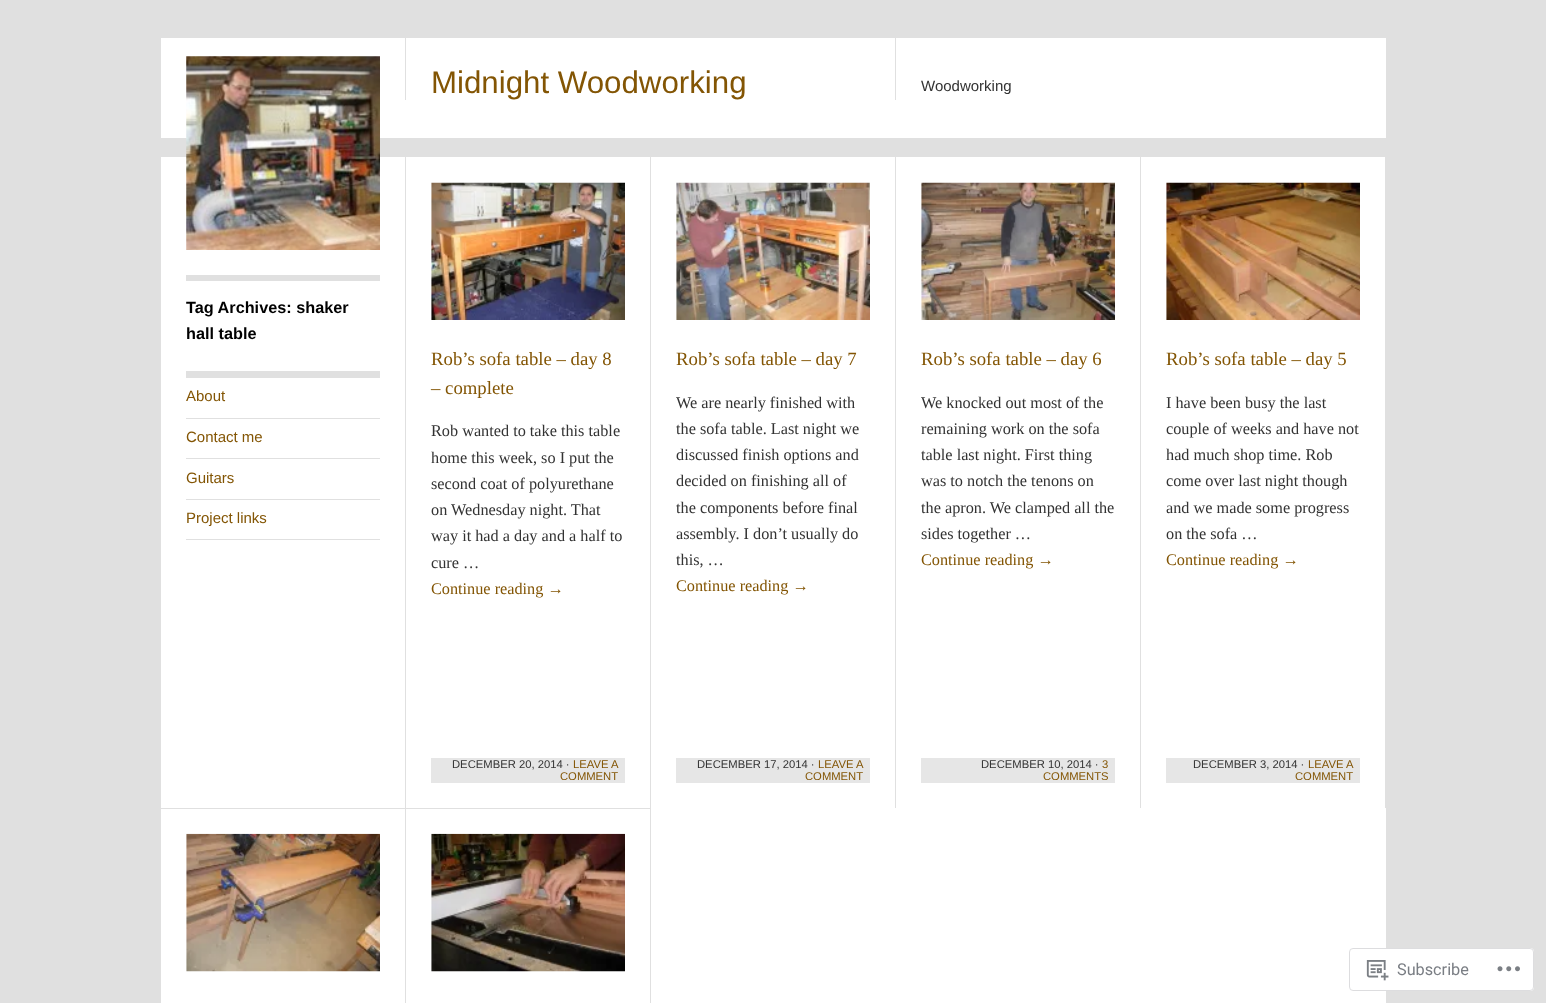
<svg xmlns="http://www.w3.org/2000/svg" width="1546" height="1003" viewBox="0 0 1546 1003">
  <rect width="100%" height="100%" fill="#e0e0e0"/>
  <rect x="161" y="38" width="1225" height="100" fill="#ffffff"/>
  <rect x="161" y="157" width="1225" height="846" fill="#ffffff"/>
  <image x="186" y="56" width="194" height="194" href="img1.png"/>
  <rect x="405" y="38" width="1" height="62" fill="#e0e0e0"/>
  <text x="431" y="93" font-family="Liberation Sans" font-size="31.25" fill="#835504">Midnight Woodworking</text>
  <rect x="895" y="38" width="1" height="62" fill="#e0e0e0"/>
  <text x="921" y="91" font-family="Liberation Sans" font-size="15" fill="#333333">Woodworking</text>
  <rect x="405" y="156" width="1" height="652" fill="#e0e0e0"/>
  <rect x="186" y="275" width="194" height="6" fill="#e0e0e0"/>
  <text x="186" y="313" font-family="Liberation Sans" font-size="16.25" font-weight="bold" fill="#000000">Tag Archives: shaker</text>
  <text x="186" y="339" font-family="Liberation Sans" font-size="16.25" font-weight="bold" fill="#000000">hall table</text>
  <rect x="186" y="371" width="194" height="7" fill="#e0e0e0"/>
  <rect x="186" y="418" width="194" height="1" fill="#e0e0e0"/>
  <text x="186" y="401" font-family="Liberation Sans" font-size="15" fill="#835504">About</text>
  <rect x="186" y="458" width="194" height="1" fill="#e0e0e0"/>
  <text x="186" y="442" font-family="Liberation Sans" font-size="15" fill="#835504">Contact me</text>
  <rect x="186" y="499" width="194" height="1" fill="#e0e0e0"/>
  <text x="186" y="483" font-family="Liberation Sans" font-size="15" fill="#835504">Guitars</text>
  <rect x="186" y="539" width="194" height="1" fill="#e0e0e0"/>
  <text x="186" y="523" font-family="Liberation Sans" font-size="15" fill="#835504">Project links</text>
  <rect x="650" y="156" width="1" height="652" fill="#e0e0e0"/>
  <image x="431" y="182" width="194" height="138" href="img2.png"/>
  <text x="431" y="365" font-family="Liberation Serif" font-size="18.75" fill="#835504">Rob’s sofa table – day 8</text>
  <text x="431" y="394" font-family="Liberation Serif" font-size="18.75" fill="#835504">– complete</text>
  <text x="431" y="436" font-family="Liberation Serif" font-size="16.25" fill="#333333">Rob wanted to take this table</text>
  <text x="431" y="463" font-family="Liberation Serif" font-size="16.25" fill="#333333">home this week, so I put the</text>
  <text x="431" y="489" font-family="Liberation Serif" font-size="16.25" fill="#333333">second coat of polyurethane</text>
  <text x="431" y="515" font-family="Liberation Serif" font-size="16.25" fill="#333333">on Wednesday night. That</text>
  <text x="431" y="541" font-family="Liberation Serif" font-size="16.25" fill="#333333">way it had a day and a half to</text>
  <text x="431" y="568" font-family="Liberation Serif" font-size="16.25" fill="#333333">cure …</text>
  <text x="431" y="594" font-family="Liberation Serif" font-size="16.25" fill="#835504">Continue reading →</text>
  <rect x="431" y="758" width="194" height="25" fill="#e6e6e6"/>
  <text x="452" y="768" font-family="Liberation Sans" font-size="11.25" fill="#333333">DECEMBER 20, 2014 ·</text>
  <text x="573" y="768" font-family="Liberation Sans" font-size="11.25" fill="#835504">LEAVE A</text>
  <text x="560" y="780" font-family="Liberation Sans" font-size="11.25" fill="#835504">COMMENT</text>
  <rect x="895" y="156" width="1" height="652" fill="#e0e0e0"/>
  <image x="676" y="182" width="194" height="138" href="img3.png"/>
  <text x="676" y="365" font-family="Liberation Serif" font-size="18.75" fill="#835504">Rob’s sofa table – day 7</text>
  <text x="676" y="408" font-family="Liberation Serif" font-size="16.25" fill="#333333">We are nearly finished with</text>
  <text x="676" y="434" font-family="Liberation Serif" font-size="16.25" fill="#333333">the sofa table. Last night we</text>
  <text x="676" y="460" font-family="Liberation Serif" font-size="16.25" fill="#333333">discussed finish options and</text>
  <text x="676" y="486" font-family="Liberation Serif" font-size="16.25" fill="#333333">decided on finishing all of</text>
  <text x="676" y="513" font-family="Liberation Serif" font-size="16.25" fill="#333333">the components before final</text>
  <text x="676" y="539" font-family="Liberation Serif" font-size="16.25" fill="#333333">assembly. I don’t usually do</text>
  <text x="676" y="565" font-family="Liberation Serif" font-size="16.25" fill="#333333">this, …</text>
  <text x="676" y="591" font-family="Liberation Serif" font-size="16.25" fill="#835504">Continue reading →</text>
  <rect x="676" y="758" width="194" height="25" fill="#e6e6e6"/>
  <text x="697" y="768" font-family="Liberation Sans" font-size="11.25" fill="#333333">DECEMBER 17, 2014 ·</text>
  <text x="818" y="768" font-family="Liberation Sans" font-size="11.25" fill="#835504">LEAVE A</text>
  <text x="805" y="780" font-family="Liberation Sans" font-size="11.25" fill="#835504">COMMENT</text>
  <rect x="1140" y="156" width="1" height="652" fill="#e0e0e0"/>
  <image x="921" y="182" width="194" height="138" href="img4.png"/>
  <text x="921" y="365" font-family="Liberation Serif" font-size="18.75" fill="#835504">Rob’s sofa table – day 6</text>
  <text x="921" y="408" font-family="Liberation Serif" font-size="16.25" fill="#333333">We knocked out most of the</text>
  <text x="921" y="434" font-family="Liberation Serif" font-size="16.25" fill="#333333">remaining work on the sofa</text>
  <text x="921" y="460" font-family="Liberation Serif" font-size="16.25" fill="#333333">table last night. First thing</text>
  <text x="921" y="486" font-family="Liberation Serif" font-size="16.25" fill="#333333">was to notch the tenons on</text>
  <text x="921" y="513" font-family="Liberation Serif" font-size="16.25" fill="#333333">the apron. We clamped all the</text>
  <text x="921" y="539" font-family="Liberation Serif" font-size="16.25" fill="#333333">sides together …</text>
  <text x="921" y="565" font-family="Liberation Serif" font-size="16.25" fill="#835504">Continue reading →</text>
  <rect x="921" y="758" width="194" height="25" fill="#e6e6e6"/>
  <text x="981" y="768" font-family="Liberation Sans" font-size="11.25" fill="#333333">DECEMBER 10, 2014 ·</text>
  <text x="1102" y="768" font-family="Liberation Sans" font-size="11.25" fill="#835504">3</text>
  <text x="1043" y="780" font-family="Liberation Sans" font-size="11.25" fill="#835504">COMMENTS</text>
  <rect x="1385" y="156" width="1" height="652" fill="#e0e0e0"/>
  <image x="1166" y="182" width="194" height="138" href="img5.png"/>
  <text x="1166" y="365" font-family="Liberation Serif" font-size="18.75" fill="#835504">Rob’s sofa table – day 5</text>
  <text x="1166" y="408" font-family="Liberation Serif" font-size="16.25" fill="#333333">I have been busy the last</text>
  <text x="1166" y="434" font-family="Liberation Serif" font-size="16.25" fill="#333333">couple of weeks and have not</text>
  <text x="1166" y="460" font-family="Liberation Serif" font-size="16.25" fill="#333333">had much shop time. Rob</text>
  <text x="1166" y="486" font-family="Liberation Serif" font-size="16.25" fill="#333333">come over last night though</text>
  <text x="1166" y="513" font-family="Liberation Serif" font-size="16.25" fill="#333333">and we made some progress</text>
  <text x="1166" y="539" font-family="Liberation Serif" font-size="16.25" fill="#333333">on the sofa …</text>
  <text x="1166" y="565" font-family="Liberation Serif" font-size="16.25" fill="#835504">Continue reading →</text>
  <rect x="1166" y="758" width="194" height="25" fill="#e6e6e6"/>
  <text x="1193" y="768" font-family="Liberation Sans" font-size="11.25" fill="#333333">DECEMBER 3, 2014 ·</text>
  <text x="1308" y="768" font-family="Liberation Sans" font-size="11.25" fill="#835504">LEAVE A</text>
  <text x="1295" y="780" font-family="Liberation Sans" font-size="11.25" fill="#835504">COMMENT</text>
  <rect x="161" y="808" width="490" height="1" fill="#e0e0e0"/>
  <rect x="405" y="808" width="1" height="195" fill="#e0e0e0"/>
  <image x="186" y="833" width="194" height="139" href="img6.png"/>
  <rect x="650" y="808" width="1" height="195" fill="#e0e0e0"/>
  <image x="431" y="833" width="194" height="139" href="img7.png"/>
  <rect x="1349" y="948" width="185" height="43" rx="4" fill="#ffffff" fill-opacity="0.98"/>
  <rect x="1349.5" y="948.5" width="184" height="42" rx="3.5" fill="none" stroke="#dcdcde" stroke-opacity="0.98"/>
  <image x="1366" y="960" width="23" height="21" href="img8.png"/>
  <text x="1397" y="975" font-family="Roboto" font-size="16.25" fill="#7a7e84">Subscribe</text>
  <image x="1497" y="966" width="23" height="6" href="img9.png"/>
</svg>
